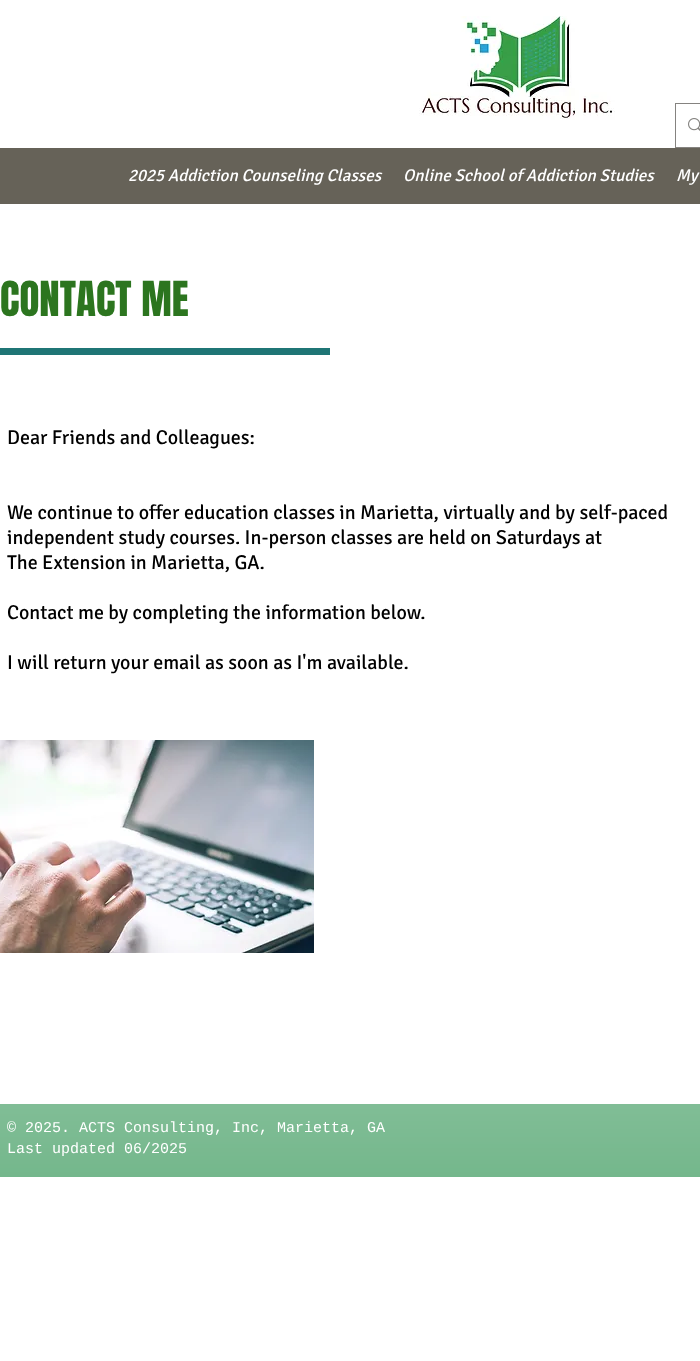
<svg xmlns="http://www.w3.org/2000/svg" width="700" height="1361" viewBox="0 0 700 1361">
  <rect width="100%" height="100%" fill="#ffffff"/>
  <image x="419" y="16" width="196" height="104" href="img1.png"/>
  <rect x="675.5" y="103.5" width="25" height="44" fill="none" stroke="#858380"/>
  <image x="688" y="118" width="12" height="13" href="img2.png"/>
  <rect x="0" y="148" width="700" height="56" fill="#666258"/>
  <text x="128" y="181" font-family="Signika" font-size="17" font-style="italic" fill="#ffffff">2025 Addiction Counseling Classes</text>
  <text x="403" y="181" font-family="Signika" font-size="17" font-style="italic" fill="#ffffff">Online School of Addiction Studies</text>
  <text x="676" y="181" font-family="Signika" font-size="17" font-style="italic" fill="#ffffff">My</text>
  <text x="0" y="316" font-family="Anton" font-size="41" fill="#2c751f">CONTACT ME</text>
  <rect x="0" y="348" width="330" height="7" fill="#1f7575"/>
  <text x="7" y="444" font-family="Signika" font-size="20" fill="#000000">Dear Friends and Colleagues:</text>
  <text x="7" y="519" font-family="Signika" font-size="20" fill="#000000">We continue to offer education classes in Marietta, virtually and by self-paced</text>
  <text x="7" y="544" font-family="Signika" font-size="20" fill="#000000">independent study courses. In-person classes are held on Saturdays at</text>
  <text x="7" y="569" font-family="Signika" font-size="20" fill="#000000">The Extension in Marietta, GA.</text>
  <text x="7" y="619" font-family="Signika" font-size="20" fill="#000000">Contact me by completing the information below.</text>
  <text x="7" y="669" font-family="Signika" font-size="20" fill="#000000">I will return your email as soon as I'm available.</text>
  <image x="0" y="740" width="314" height="213" href="img3.png"/>
  <rect x="0" y="1104" width="700" height="73" fill="#55a772"/>
  <image x="0" y="1104" width="700" height="73" href="img4.png"/>
  <text x="7" y="1132" font-family="Liberation Mono" font-size="15" fill="#ffffff">© 2025. ACTS Consulting, Inc, Marietta, GA</text>
  <text x="7" y="1153" font-family="Liberation Mono" font-size="15" fill="#ffffff">Last updated 06/2025</text>
</svg>
